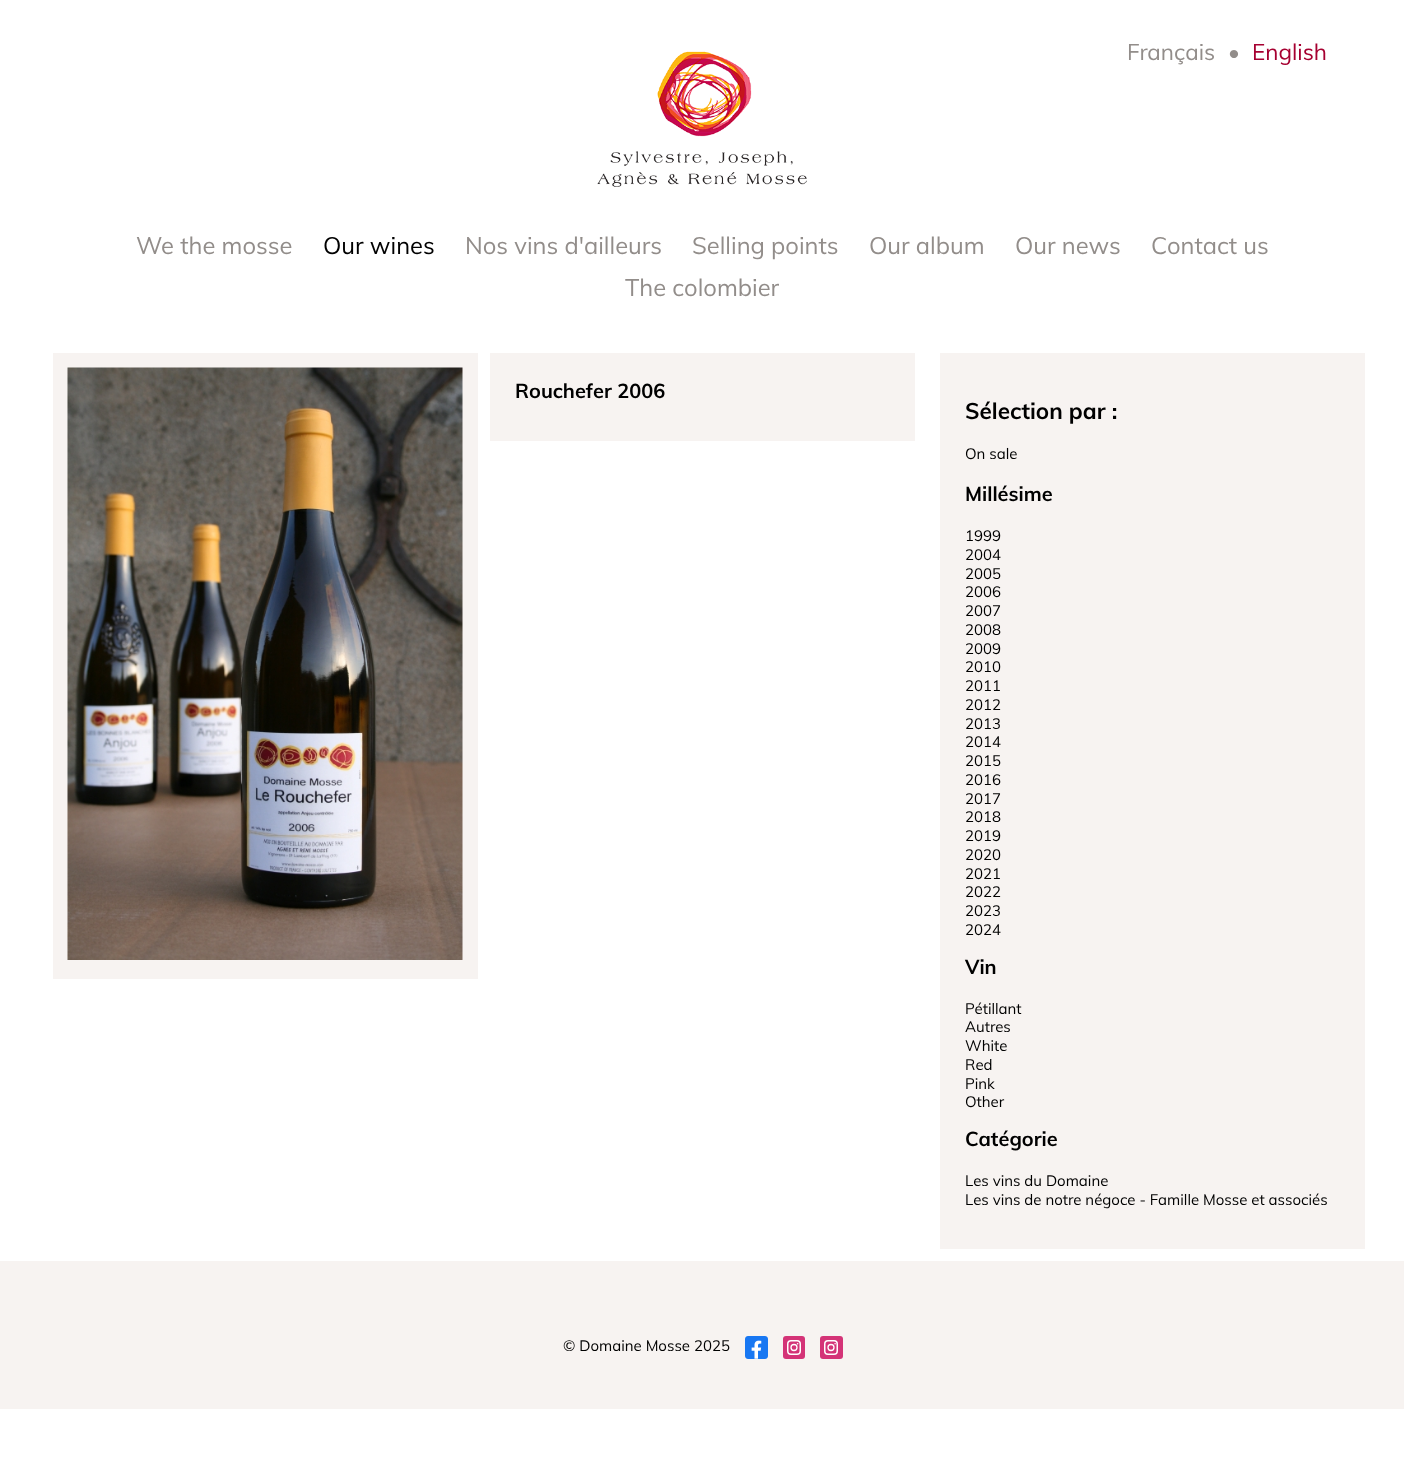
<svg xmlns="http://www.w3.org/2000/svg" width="1404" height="1462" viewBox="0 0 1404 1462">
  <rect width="100%" height="100%" fill="#ffffff"/>
  <image x="597" y="51" width="210" height="136" href="img1.png"/>
  <text x="1127" y="60" font-family="Muli" font-size="22.5" fill="#928d8a">Français</text>
  <text x="1228" y="60" font-family="Muli" font-size="22.5" fill="#928d8a">•</text>
  <text x="1252" y="60" font-family="Muli" font-size="22.5" fill="#a60031">English</text>
  <text x="136" y="254" font-family="Muli" font-size="23.75" fill="#928d8a">We the mosse</text>
  <text x="323" y="254" font-family="Muli" font-size="23.75" fill="#000000">Our wines</text>
  <text x="465" y="254" font-family="Muli" font-size="23.75" fill="#928d8a">Nos vins d'ailleurs</text>
  <text x="692" y="254" font-family="Muli" font-size="23.75" fill="#928d8a">Selling points</text>
  <text x="869" y="254" font-family="Muli" font-size="23.75" fill="#928d8a">Our album</text>
  <text x="1015" y="254" font-family="Muli" font-size="23.75" fill="#928d8a">Our news</text>
  <text x="1151" y="254" font-family="Muli" font-size="23.75" fill="#928d8a">Contact us</text>
  <text x="625" y="296" font-family="Muli" font-size="23.75" fill="#928d8a">The colombier</text>
  <rect x="53" y="353" width="425" height="626" fill="#f7f3f1"/>
  <image x="67" y="367" width="396" height="593" href="img2.png"/>
  <rect x="490" y="353" width="425" height="88" fill="#f7f3f1"/>
  <text x="515" y="398" font-family="Muli" font-size="20" font-weight="bold" fill="#000000">Rouchefer 2006</text>
  <rect x="940" y="353" width="425" height="896" fill="#f7f3f1"/>
  <text x="965" y="419" font-family="Muli" font-size="22.5" font-weight="bold" fill="#000000">Sélection par :</text>
  <text x="965" y="459" font-family="Muli" font-size="15" fill="#000000">On sale</text>
  <text x="965" y="501" font-family="Muli" font-size="20" font-weight="bold" fill="#000000">Millésime</text>
  <text x="965" y="541" font-family="Muli" font-size="15" fill="#000000">1999</text>
  <text x="965" y="560" font-family="Muli" font-size="15" fill="#000000">2004</text>
  <text x="965" y="579" font-family="Muli" font-size="15" fill="#000000">2005</text>
  <text x="965" y="597" font-family="Muli" font-size="15" fill="#000000">2006</text>
  <text x="965" y="616" font-family="Muli" font-size="15" fill="#000000">2007</text>
  <text x="965" y="635" font-family="Muli" font-size="15" fill="#000000">2008</text>
  <text x="965" y="654" font-family="Muli" font-size="15" fill="#000000">2009</text>
  <text x="965" y="672" font-family="Muli" font-size="15" fill="#000000">2010</text>
  <text x="965" y="691" font-family="Muli" font-size="15" fill="#000000">2011</text>
  <text x="965" y="710" font-family="Muli" font-size="15" fill="#000000">2012</text>
  <text x="965" y="729" font-family="Muli" font-size="15" fill="#000000">2013</text>
  <text x="965" y="747" font-family="Muli" font-size="15" fill="#000000">2014</text>
  <text x="965" y="766" font-family="Muli" font-size="15" fill="#000000">2015</text>
  <text x="965" y="785" font-family="Muli" font-size="15" fill="#000000">2016</text>
  <text x="965" y="804" font-family="Muli" font-size="15" fill="#000000">2017</text>
  <text x="965" y="822" font-family="Muli" font-size="15" fill="#000000">2018</text>
  <text x="965" y="841" font-family="Muli" font-size="15" fill="#000000">2019</text>
  <text x="965" y="860" font-family="Muli" font-size="15" fill="#000000">2020</text>
  <text x="965" y="879" font-family="Muli" font-size="15" fill="#000000">2021</text>
  <text x="965" y="897" font-family="Muli" font-size="15" fill="#000000">2022</text>
  <text x="965" y="916" font-family="Muli" font-size="15" fill="#000000">2023</text>
  <text x="965" y="935" font-family="Muli" font-size="15" fill="#000000">2024</text>
  <text x="965" y="974" font-family="Muli" font-size="20" font-weight="bold" fill="#000000">Vin</text>
  <text x="965" y="1014" font-family="Muli" font-size="15" fill="#000000">Pétillant</text>
  <text x="965" y="1032" font-family="Muli" font-size="15" fill="#000000">Autres</text>
  <text x="965" y="1051" font-family="Muli" font-size="15" fill="#000000">White</text>
  <text x="965" y="1070" font-family="Muli" font-size="15" fill="#000000">Red</text>
  <text x="965" y="1089" font-family="Muli" font-size="15" fill="#000000">Pink</text>
  <text x="965" y="1107" font-family="Muli" font-size="15" fill="#000000">Other</text>
  <text x="965" y="1146" font-family="Muli" font-size="20" font-weight="bold" fill="#000000">Catégorie</text>
  <text x="965" y="1186" font-family="Muli" font-size="15" fill="#000000">Les vins du Domaine</text>
  <text x="965" y="1205" font-family="Muli" font-size="15" fill="#000000">Les vins de notre négoce - Famille Mosse et associés</text>
  <rect x="0" y="1261" width="1404" height="148" fill="#f7f3f1"/>
  <text x="563" y="1351" font-family="Muli" font-size="15" fill="#000000">© Domaine Mosse 2025</text>
  <image x="745" y="1336" width="23" height="23" href="img3.png"/>
  <rect x="783" y="1336" width="22" height="23" rx="3" fill="#d43377"/>
  <rect x="787.75" y="1340.75" width="12.5" height="13.5" rx="3.25" fill="none" stroke="#ffffff" stroke-width="1.5"/>
  <circle cx="794" cy="1347.5" r="3" fill="none" stroke="#ffffff" stroke-width="1.3"/>
  <circle cx="797.6" cy="1343.7" r="0.8" fill="#ffffff"/>
  <rect x="820" y="1336" width="23" height="23" rx="3" fill="#d43377"/>
  <rect x="824.75" y="1340.75" width="12.5" height="13.5" rx="3.25" fill="none" stroke="#ffffff" stroke-width="1.5"/>
  <circle cx="831" cy="1347.5" r="3" fill="none" stroke="#ffffff" stroke-width="1.3"/>
  <circle cx="835.1" cy="1343.7" r="0.8" fill="#ffffff"/>
</svg>
